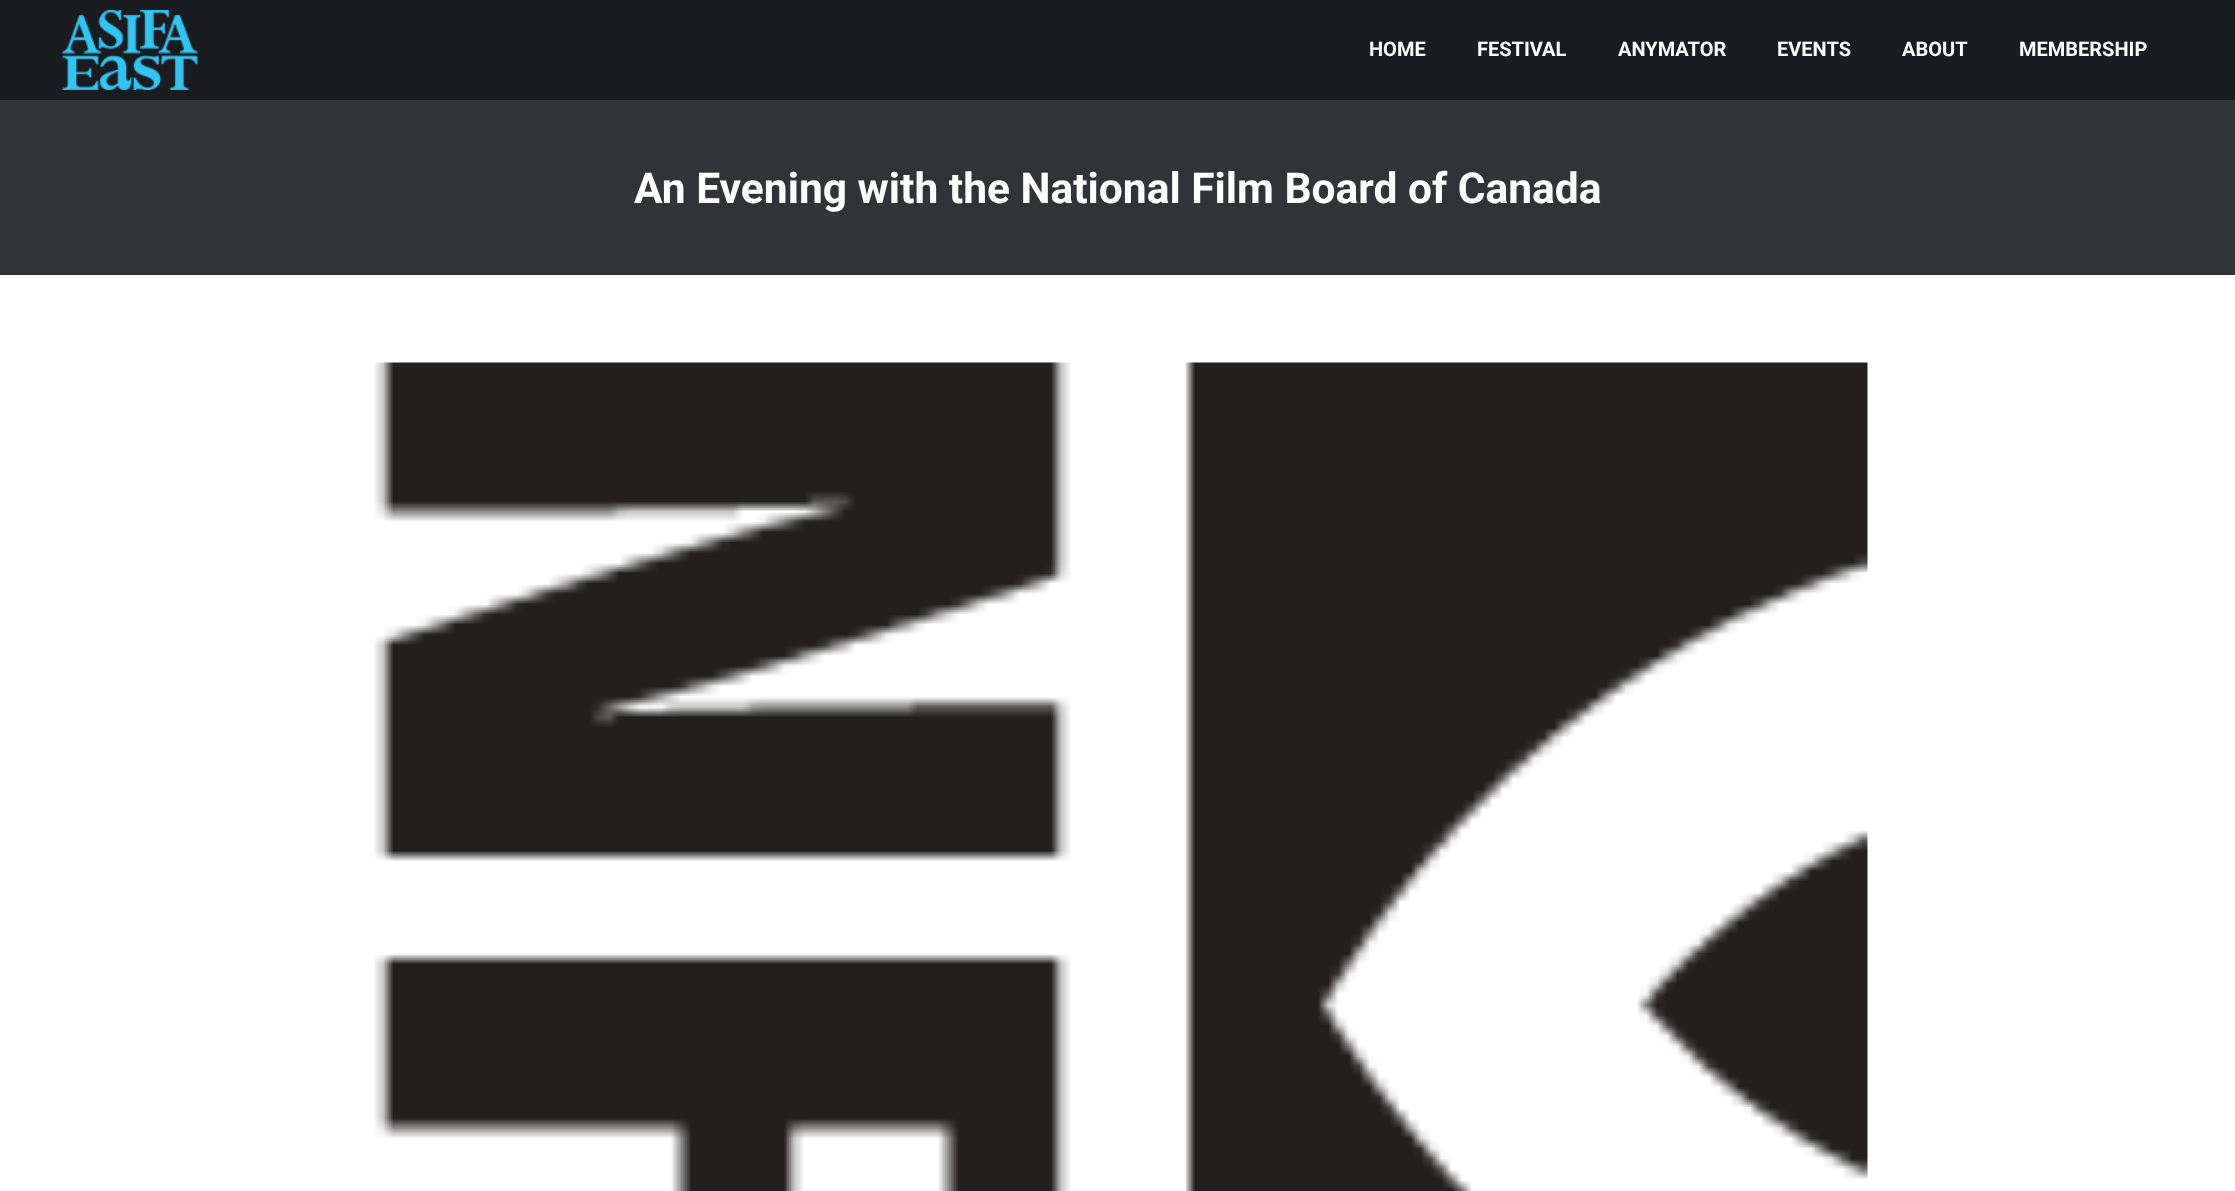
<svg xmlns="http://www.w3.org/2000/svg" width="2235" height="1191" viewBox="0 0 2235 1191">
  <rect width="100%" height="100%" fill="#ffffff"/>
  <rect x="0" y="0" width="2235" height="100" fill="#1a1c20"/>
  <image x="62" y="10" width="136" height="80" href="img1.png"/>
  <text x="1369" y="56" font-family="Roboto" font-size="20" font-weight="bold" fill="#ffffff">HOME</text>
  <text x="1477" y="56" font-family="Roboto" font-size="20" font-weight="bold" fill="#ffffff">FESTIVAL</text>
  <text x="1618" y="56" font-family="Roboto" font-size="20" font-weight="bold" fill="#ffffff">ANYMATOR</text>
  <text x="1777" y="56" font-family="Roboto" font-size="20" font-weight="bold" fill="#ffffff">EVENTS</text>
  <text x="1902" y="56" font-family="Roboto" font-size="20" font-weight="bold" fill="#ffffff">ABOUT</text>
  <text x="2019" y="56" font-family="Roboto" font-size="20" font-weight="bold" fill="#ffffff">MEMBERSHIP</text>
  <rect x="0" y="100" width="2235" height="175" fill="#313337"/>
  <text x="634" y="203" font-family="Roboto" font-size="42.5" font-weight="bold" fill="#ffffff">An Evening with the National Film Board of Canada</text>
  <image x="374" y="362" width="1494" height="829" href="img2.png"/>
</svg>
